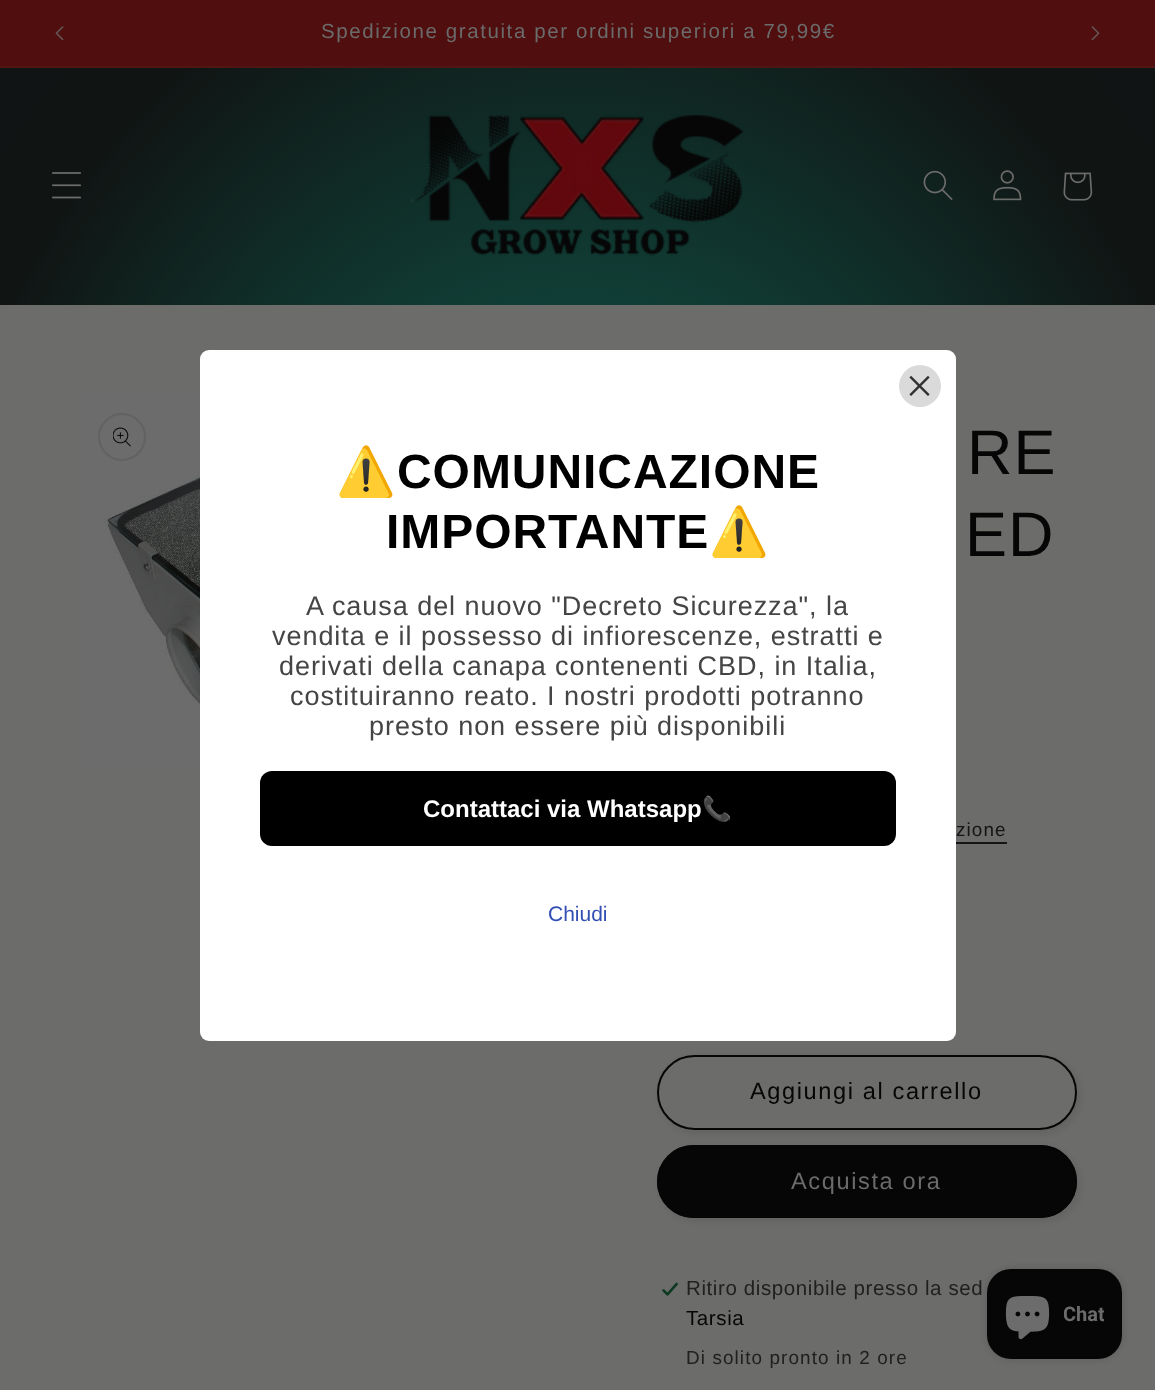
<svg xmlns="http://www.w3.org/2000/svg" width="1155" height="1390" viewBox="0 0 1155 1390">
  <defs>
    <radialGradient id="g1" gradientUnits="userSpaceOnUse" cx="0" cy="0" r="1" gradientTransform="matrix(817 0 0 983 578 695)"><stop offset="0.32" stop-color="#10463c"/><stop offset="0.81" stop-color="#101413"/><stop offset="1" stop-color="#111414"/></radialGradient>
    <filter id="blur1" x="-50%" y="-200%" width="200%" height="500%"><feGaussianBlur stdDeviation="4"/></filter>
    <clipPath id="clip1"><rect x="1064" y="1292" width="40" height="45"/></clipPath>
  </defs>
  <rect width="100%" height="100%" fill="#6c6c6a"/>
  <rect x="0" y="0" width="1155" height="66" fill="#500e0e"/>
  <rect x="0" y="66" width="1155" height="2" fill="#521515"/>
  <image x="55" y="26" width="9" height="15" href="img1.png"/>
  <text x="321" y="38" font-family="Arimo" font-size="20.5" letter-spacing="1.6" fill="#6b6b6b">Spedizione gratuita per ordini superiori a 79,99€</text>
  <image x="1091" y="26" width="9" height="15" href="img2.png"/>
  <rect x="0" y="68" width="1155" height="237" fill="url(#g1)"/>
  <image x="51" y="172" width="31" height="27" href="img3.png"/>
  <image x="410" y="114" width="334" height="142" href="img4.png"/>
  <image x="923" y="170" width="30" height="30" href="img5.png"/>
  <image x="993" y="170" width="29" height="31" href="img6.png"/>
  <image x="1063" y="172" width="30" height="29" href="img7.png"/>
  <image x="80" y="395" width="120" height="373" href="img8.png"/>
  <circle cx="122" cy="437" r="23" fill="none" stroke="#626260" stroke-width="2"/>
  <image x="113" y="427" width="18" height="20" href="img9.png"/>
  <text x="967" y="474" font-family="Arimo" font-size="63" letter-spacing="0.95" fill="#060606">RE</text>
  <text x="965" y="556" font-family="Arimo" font-size="63" letter-spacing="0.95" fill="#060606">ED</text>
  <text x="956" y="836" font-family="Arimo" font-size="18.9" letter-spacing="1.1" fill="#151515">zione</text>
  <rect x="956" y="842" width="51" height="2" fill="#151515"/>
  <rect x="660" y="1058" width="420" height="75" rx="37.5" fill="#060606" fill-opacity="0.1" filter="url(#blur1)"/>
  <rect x="657" y="1055" width="420" height="75" rx="37.5" fill="#6c6c6a"/>
  <rect x="658" y="1056" width="418" height="73" rx="36.5" fill="none" stroke="#060606" stroke-width="2"/>
  <text x="750" y="1099" font-family="Arimo" font-size="23.6" letter-spacing="1.6" fill="#060606">Aggiungi al carrello</text>
  <rect x="660" y="1148" width="420" height="73" rx="36.5" fill="#060606" fill-opacity="0.1" filter="url(#blur1)"/>
  <rect x="657" y="1145" width="420" height="73" rx="36.5" fill="#060606"/>
  <rect x="658" y="1146" width="418" height="71" rx="35.5" fill="none" stroke="#060606" stroke-width="2"/>
  <text x="791" y="1189" font-family="Arimo" font-size="23.6" letter-spacing="1.6" fill="#6b6b6b">Acquista ora</text>
  <image x="661" y="1282" width="18" height="15" href="img10.png"/>
  <text x="686" y="1295" font-family="Arimo" font-size="20.5" letter-spacing="0.6" fill="#20201f">Ritiro disponibile presso la sed</text>
  <text x="686" y="1325" font-family="Arimo" font-size="20.5" letter-spacing="0.6" fill="#060606">Tarsia</text>
  <text x="686" y="1364" font-family="Arimo" font-size="18.9" letter-spacing="1.1" fill="#20201f">Di solito pronto in 2 ore</text>
  <rect x="200" y="350" width="756" height="691" rx="9" fill="#ffffff"/>
  <circle cx="920" cy="386" r="21" fill="#dadada"/>
  <image x="909" y="375" width="21" height="21" href="img11.png"/>
  <text x="336" y="488" font-family="Noto Color Emoji" font-size="48" font-weight="bold" letter-spacing="0.95" fill="#000000">⚠️</text>
  <text x="397" y="488" font-family="Arimo" font-size="48" font-weight="bold" letter-spacing="0.95" fill="#000000">COMUNICAZIONE</text>
  <text x="386" y="548" font-family="Arimo" font-size="48" font-weight="bold" letter-spacing="0.95" fill="#000000">IMPORTANTE</text>
  <text x="709" y="548" font-family="Noto Color Emoji" font-size="48" font-weight="bold" letter-spacing="0.95" fill="#000000">⚠️</text>
  <text x="306" y="615" font-family="Arimo" font-size="27" letter-spacing="0.95" fill="#454545">A causa del nuovo "Decreto Sicurezza", la</text>
  <text x="272" y="645" font-family="Arimo" font-size="27" letter-spacing="0.95" fill="#454545">vendita e il possesso di infiorescenze, estratti e</text>
  <text x="279" y="675" font-family="Arimo" font-size="27" letter-spacing="0.95" fill="#454545">derivati della canapa contenenti CBD, in Italia,</text>
  <text x="290" y="705" font-family="Arimo" font-size="27" letter-spacing="0.95" fill="#454545">costituiranno reato. I nostri prodotti potranno</text>
  <text x="369" y="735" font-family="Arimo" font-size="27" letter-spacing="0.95" fill="#454545">presto non essere più disponibili</text>
  <rect x="260" y="771" width="636" height="75" rx="12" fill="#000000"/>
  <text x="423" y="817" font-family="Liberation Sans" font-size="24" font-weight="bold" fill="#ffffff">Contattaci via Whatsapp</text>
  <text x="702" y="817" font-family="Noto Color Emoji" font-size="24" font-weight="bold" fill="#ffffff">📞</text>
  <text x="548" y="921" font-family="Liberation Sans" font-size="21" fill="#334fb4">Chiudi</text>
  <rect x="987" y="1269" width="135" height="90" rx="24" fill="#060606" fill-opacity="0.15" filter="url(#blur1)"/>
  <rect x="987" y="1269" width="135" height="90" rx="24" fill="#060606"/>
  <image x="1005" y="1296" width="45" height="44" href="img12.png"/>
  <g clip-path="url(#clip1)">
    <text x="1063" y="1321" font-family="Roboto" font-size="20" font-weight="bold" fill="#6b6b6b">Chat</text>
  </g>
</svg>
